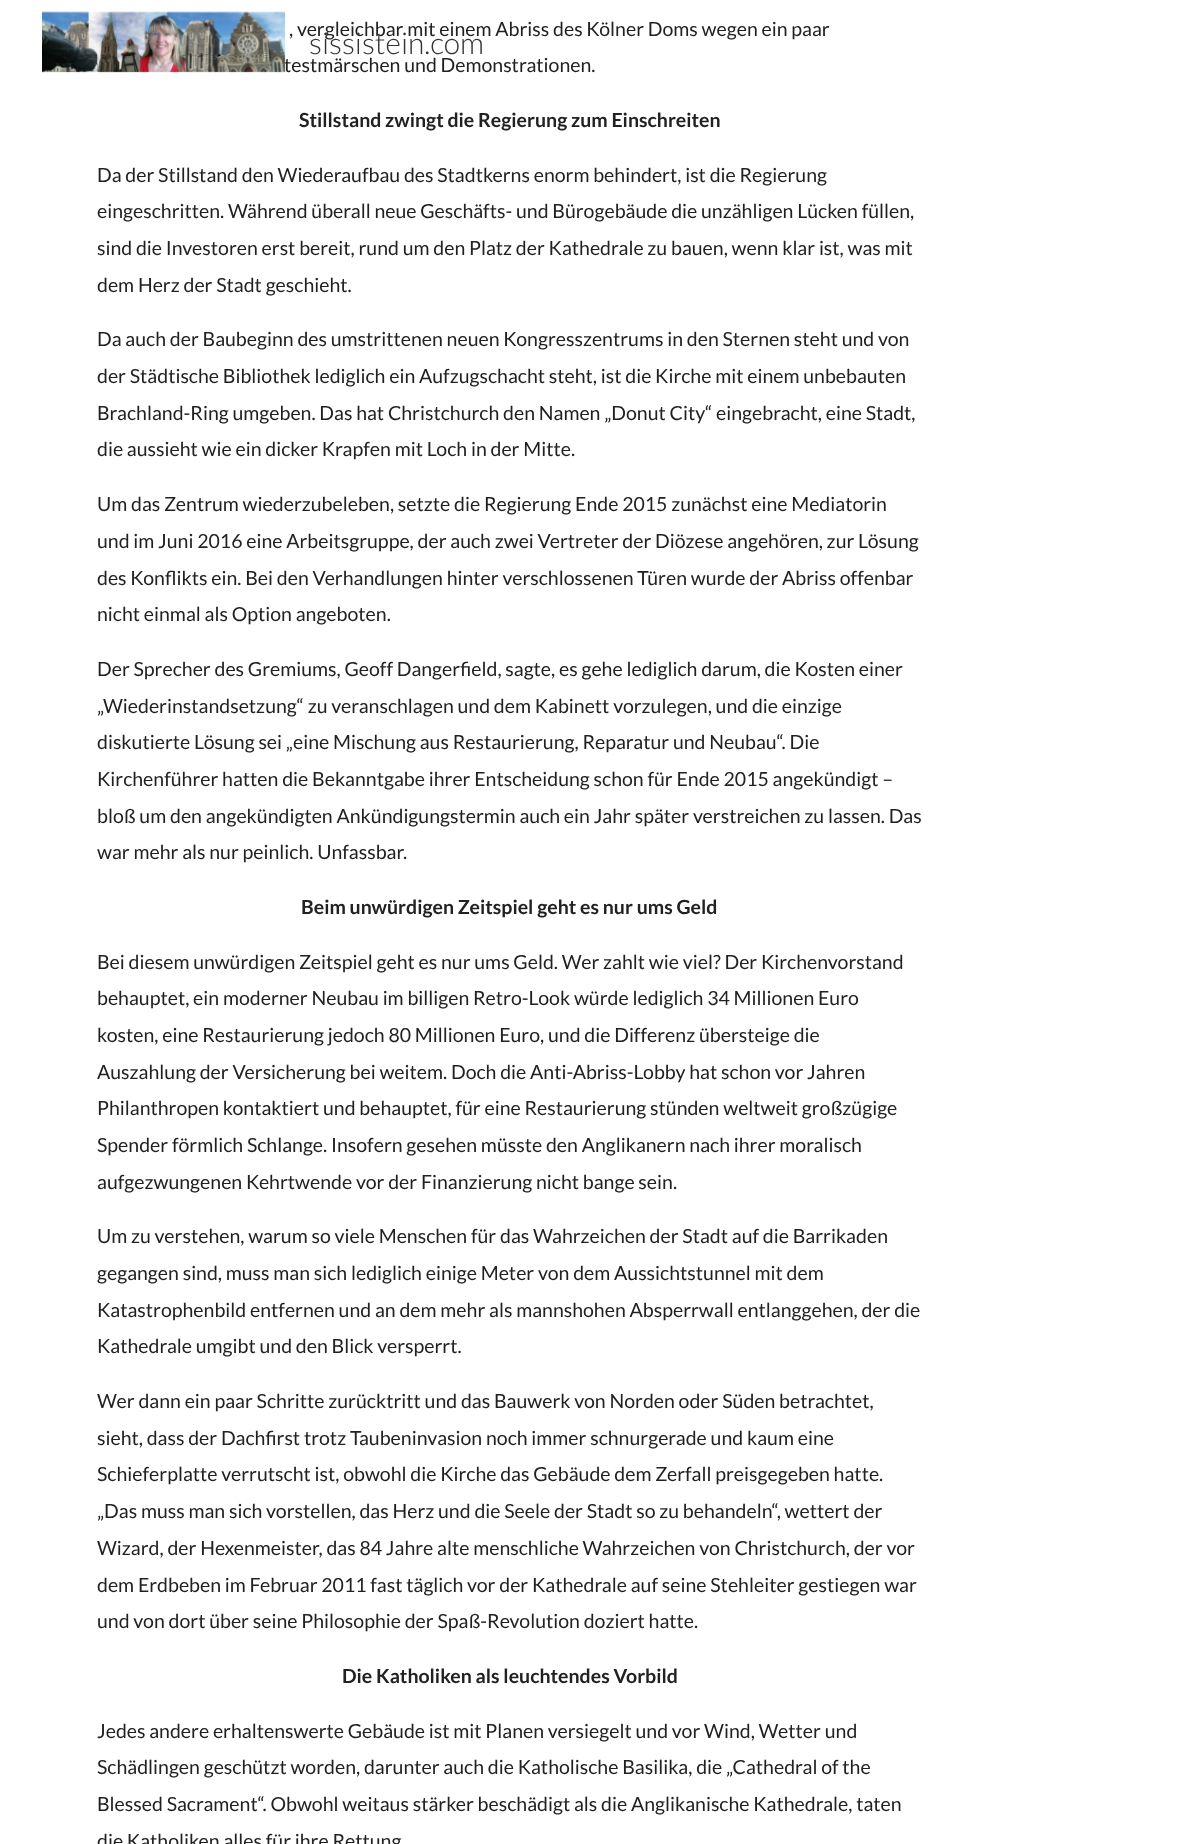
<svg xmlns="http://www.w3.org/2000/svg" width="1193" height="1844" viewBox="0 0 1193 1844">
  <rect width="100%" height="100%" fill="#ffffff"/>
  <text x="289" y="36" font-family="Lato" font-size="19.5" fill="#212121">, vergleichbar mit einem Abriss des Kölner Doms wegen ein paar</text>
  <text x="284" y="72" font-family="Lato" font-size="19.5" fill="#212121">testmärschen und Demonstrationen.</text>
  <text x="299" y="127" font-family="Lato" font-size="19.5" font-weight="bold" fill="#212121">Stillstand zwingt die Regierung zum Einschreiten</text>
  <text x="97" y="182" font-family="Lato" font-size="19.5" fill="#212121">Da der Stillstand den Wiederaufbau des Stadtkerns enorm behindert, ist die Regierung</text>
  <text x="97" y="218" font-family="Lato" font-size="19.5" fill="#212121">eingeschritten. Während überall neue Geschäfts- und Bürogebäude die unzähligen Lücken füllen,</text>
  <text x="97" y="255" font-family="Lato" font-size="19.5" fill="#212121">sind die Investoren erst bereit, rund um den Platz der Kathedrale zu bauen, wenn klar ist, was mit</text>
  <text x="97" y="292" font-family="Lato" font-size="19.5" fill="#212121">dem Herz der Stadt geschieht.</text>
  <text x="97" y="346" font-family="Lato" font-size="19.5" fill="#212121">Da auch der Baubeginn des umstrittenen neuen Kongresszentrums in den Sternen steht und von</text>
  <text x="97" y="383" font-family="Lato" font-size="19.5" fill="#212121">der Städtische Bibliothek lediglich ein Aufzugschacht steht, ist die Kirche mit einem unbebauten</text>
  <text x="97" y="420" font-family="Lato" font-size="19.5" fill="#212121">Brachland-Ring umgeben. Das hat Christchurch den Namen „Donut City“ eingebracht, eine Stadt,</text>
  <text x="97" y="456" font-family="Lato" font-size="19.5" fill="#212121">die aussieht wie ein dicker Krapfen mit Loch in der Mitte.</text>
  <text x="97" y="511" font-family="Lato" font-size="19.5" fill="#212121">Um das Zentrum wiederzubeleben, setzte die Regierung Ende 2015 zunächst eine Mediatorin</text>
  <text x="97" y="548" font-family="Lato" font-size="19.5" fill="#212121">und im Juni 2016 eine Arbeitsgruppe, der auch zwei Vertreter der Diözese angehören, zur Lösung</text>
  <text x="97" y="585" font-family="Lato" font-size="19.5" fill="#212121">des Konflikts ein. Bei den Verhandlungen hinter verschlossenen Türen wurde der Abriss offenbar</text>
  <text x="97" y="621" font-family="Lato" font-size="19.5" fill="#212121">nicht einmal als Option angeboten.</text>
  <text x="97" y="676" font-family="Lato" font-size="19.5" fill="#212121">Der Sprecher des Gremiums, Geoff Dangerfield, sagte, es gehe lediglich darum, die Kosten einer</text>
  <text x="97" y="713" font-family="Lato" font-size="19.5" fill="#212121">„Wiederinstandsetzung“ zu veranschlagen und dem Kabinett vorzulegen, und die einzige</text>
  <text x="97" y="749" font-family="Lato" font-size="19.5" fill="#212121">diskutierte Lösung sei „eine Mischung aus Restaurierung, Reparatur und Neubau“. Die</text>
  <text x="97" y="786" font-family="Lato" font-size="19.5" fill="#212121">Kirchenführer hatten die Bekanntgabe ihrer Entscheidung schon für Ende 2015 angekündigt –</text>
  <text x="97" y="823" font-family="Lato" font-size="19.5" fill="#212121">bloß um den angekündigten Ankündigungstermin auch ein Jahr später verstreichen zu lassen. Das</text>
  <text x="97" y="859" font-family="Lato" font-size="19.5" fill="#212121">war mehr als nur peinlich. Unfassbar.</text>
  <text x="301" y="914" font-family="Lato" font-size="19.5" font-weight="bold" fill="#212121">Beim unwürdigen Zeitspiel geht es nur ums Geld</text>
  <text x="97" y="969" font-family="Lato" font-size="19.5" fill="#212121">Bei diesem unwürdigen Zeitspiel geht es nur ums Geld. Wer zahlt wie viel? Der Kirchenvorstand</text>
  <text x="97" y="1005" font-family="Lato" font-size="19.5" fill="#212121">behauptet, ein moderner Neubau im billigen Retro-Look würde lediglich 34 Millionen Euro</text>
  <text x="97" y="1042" font-family="Lato" font-size="19.5" fill="#212121">kosten, eine Restaurierung jedoch 80 Millionen Euro, und die Differenz übersteige die</text>
  <text x="97" y="1079" font-family="Lato" font-size="19.5" fill="#212121">Auszahlung der Versicherung bei weitem. Doch die Anti-Abriss-Lobby hat schon vor Jahren</text>
  <text x="97" y="1115" font-family="Lato" font-size="19.5" fill="#212121">Philanthropen kontaktiert und behauptet, für eine Restaurierung stünden weltweit großzügige</text>
  <text x="97" y="1152" font-family="Lato" font-size="19.5" fill="#212121">Spender förmlich Schlange. Insofern gesehen müsste den Anglikanern nach ihrer moralisch</text>
  <text x="97" y="1189" font-family="Lato" font-size="19.5" fill="#212121">aufgezwungenen Kehrtwende vor der Finanzierung nicht bange sein.</text>
  <text x="97" y="1243" font-family="Lato" font-size="19.5" fill="#212121">Um zu verstehen, warum so viele Menschen für das Wahrzeichen der Stadt auf die Barrikaden</text>
  <text x="97" y="1280" font-family="Lato" font-size="19.5" fill="#212121">gegangen sind, muss man sich lediglich einige Meter von dem Aussichtstunnel mit dem</text>
  <text x="97" y="1317" font-family="Lato" font-size="19.5" fill="#212121">Katastrophenbild entfernen und an dem mehr als mannshohen Absperrwall entlanggehen, der die</text>
  <text x="97" y="1353" font-family="Lato" font-size="19.5" fill="#212121">Kathedrale umgibt und den Blick versperrt.</text>
  <text x="97" y="1408" font-family="Lato" font-size="19.5" fill="#212121">Wer dann ein paar Schritte zurücktritt und das Bauwerk von Norden oder Süden betrachtet,</text>
  <text x="97" y="1445" font-family="Lato" font-size="19.5" fill="#212121">sieht, dass der Dachfirst trotz Taubeninvasion noch immer schnurgerade und kaum eine</text>
  <text x="97" y="1481" font-family="Lato" font-size="19.5" fill="#212121">Schieferplatte verrutscht ist, obwohl die Kirche das Gebäude dem Zerfall preisgegeben hatte.</text>
  <text x="97" y="1518" font-family="Lato" font-size="19.5" fill="#212121">„Das muss man sich vorstellen, das Herz und die Seele der Stadt so zu behandeln“, wettert der</text>
  <text x="97" y="1555" font-family="Lato" font-size="19.5" fill="#212121">Wizard, der Hexenmeister, das 84 Jahre alte menschliche Wahrzeichen von Christchurch, der vor</text>
  <text x="97" y="1592" font-family="Lato" font-size="19.5" fill="#212121">dem Erdbeben im Februar 2011 fast täglich vor der Kathedrale auf seine Stehleiter gestiegen war</text>
  <text x="97" y="1628" font-family="Lato" font-size="19.5" fill="#212121">und von dort über seine Philosophie der Spaß-Revolution doziert hatte.</text>
  <text x="342" y="1683" font-family="Lato" font-size="19.5" font-weight="bold" fill="#212121">Die Katholiken als leuchtendes Vorbild</text>
  <text x="97" y="1738" font-family="Lato" font-size="19.5" fill="#212121">Jedes andere erhaltenswerte Gebäude ist mit Planen versiegelt und vor Wind, Wetter und</text>
  <text x="97" y="1774" font-family="Lato" font-size="19.5" fill="#212121">Schädlingen geschützt worden, darunter auch die Katholische Basilika, die „Cathedral of the</text>
  <text x="97" y="1811" font-family="Lato" font-size="19.5" fill="#212121">Blessed Sacrament“. Obwohl weitaus stärker beschädigt als die Anglikanische Kathedrale, taten</text>
  <text x="97" y="1848" font-family="Lato" font-size="19.5" fill="#212121">die Katholiken alles für ihre Rettung</text>
  <image x="42" y="11" width="244" height="62" href="img1.png"/>
  <text x="309" y="54" font-family="Lato" font-size="30" font-weight="300" fill="#333333">sissistein.com</text>
</svg>
